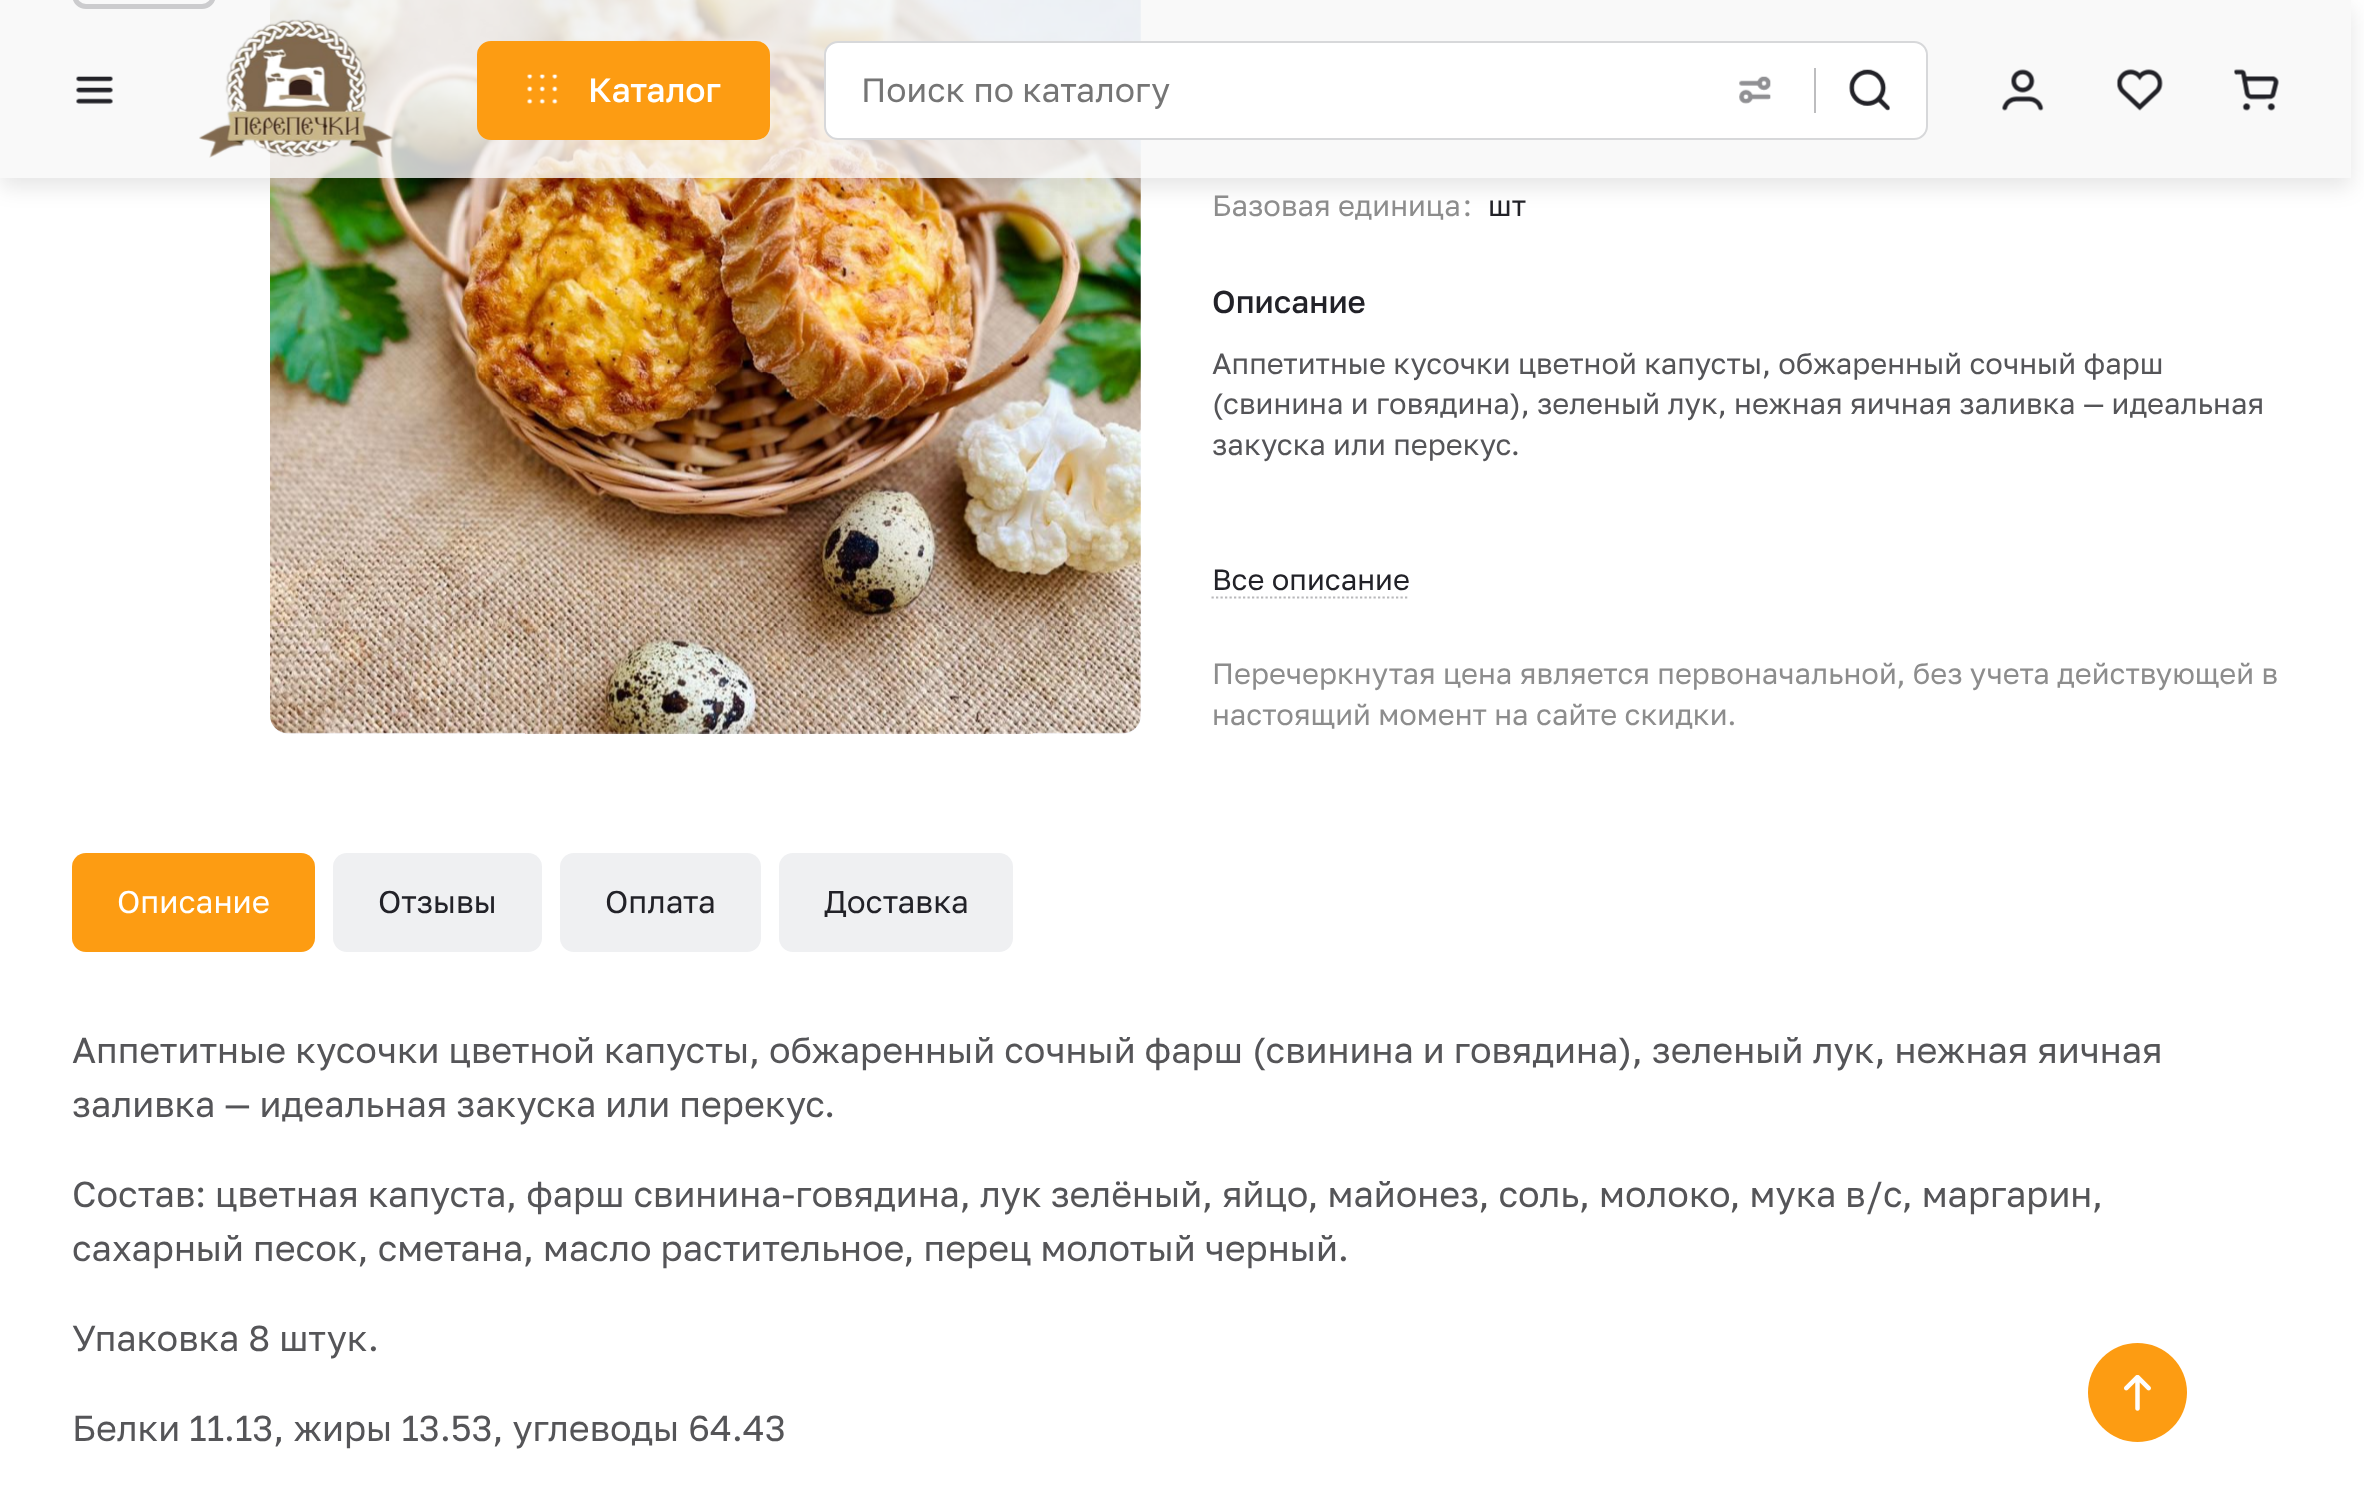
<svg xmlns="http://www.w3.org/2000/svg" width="2364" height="1494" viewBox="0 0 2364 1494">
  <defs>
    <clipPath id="clip1"><path d="M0 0H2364V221H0ZM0 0H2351V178H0Z" clip-rule="evenodd"/></clipPath>
    <filter id="blur1" x="-50%" y="-200%" width="200%" height="500%"><feGaussianBlur stdDeviation="11"/></filter>
  </defs>
  <rect width="100%" height="100%" fill="#ffffff"/>
  <rect x="74.5" y="-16.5" width="139" height="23" rx="11.5" fill="none" stroke="#222228" stroke-width="5"/>
  <rect x="270" y="-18" width="871" height="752" rx="18" fill="#f8f8fc"/>
  <image x="270" y="0" width="871" height="734" href="img9.png"/>
  <rect x="0" y="0" width="2351" height="178" fill="#f7f7f7" fill-opacity="0.8"/>
  <g clip-path="url(#clip1)">
    <rect x="0" y="9" width="2351" height="178" fill="#000000" fill-opacity="0.1" filter="url(#blur1)"/>
  </g>
  <image x="76" y="76" width="37" height="28" href="img1.png"/>
  <image x="199" y="19" width="194" height="139" href="img2.png"/>
  <rect x="478" y="42" width="291" height="97" rx="13" fill="#fd9c12" stroke="#fd9c12" stroke-width="2"/>
  <image x="527" y="74" width="31" height="30" href="img3.png"/>
  <text x="588" y="102" font-family="Golos Text" font-size="33.75" font-weight="500" fill="#ffffff">Каталог</text>
  <rect x="825" y="42" width="1102" height="97" rx="13" fill="#ffffff" stroke="#d7d8da" stroke-width="2"/>
  <text x="861" y="102" font-family="Golos Text" font-size="33.75" fill="#757575">Поиск по каталогу</text>
  <image x="1739" y="76" width="32" height="28" href="img4.png"/>
  <rect x="1814" y="68" width="2" height="45" fill="#bdbdbf"/>
  <image x="1849" y="69" width="41" height="42" href="img5.png"/>
  <image x="2002" y="69" width="42" height="42" href="img6.png"/>
  <image x="2116" y="69" width="47" height="42" href="img7.png"/>
  <image x="2234" y="69" width="45" height="42" href="img8.png"/>
  <text x="1212" y="216" font-family="Golos Text" font-size="29.25" fill="#8d8d8d">Базовая единица</text>
  <text x="1463" y="216" font-family="Golos Text" font-size="29.25" fill="#8d8d8d">:</text>
  <text x="1488" y="216" font-family="Golos Text" font-size="29.25" fill="#222228">шт</text>
  <text x="1212" y="313" font-family="Golos Text" font-size="31.5" font-weight="500" fill="#222228">Описание</text>
  <text x="1212" y="374" font-family="Golos Text" font-size="29.25" fill="#555558">Аппетитные кусочки цветной капусты, обжаренный сочный фарш</text>
  <text x="1212" y="414" font-family="Golos Text" font-size="29.25" fill="#555558">(свинина и говядина), зеленый лук, нежная яичная заливка — идеальная</text>
  <text x="1212" y="455" font-family="Golos Text" font-size="29.25" fill="#555558">закуска или перекус.</text>
  <text x="1212" y="590" font-family="Golos Text" font-size="29.25" fill="#222228">Все описание</text>
  <path d="M1211.5 597.5H1409.5" fill="none" stroke="#b8b8ba" stroke-width="2.2" stroke-dasharray="2.25 2.25"/>
  <text x="1212" y="684" font-family="Golos Text" font-size="29.25" fill="#8d8d8d">Перечеркнутая цена является первоначальной, без учета действующей в</text>
  <text x="1212" y="725" font-family="Golos Text" font-size="29.25" fill="#8d8d8d">настоящий момент на сайте скидки.</text>
  <rect x="72" y="853" width="243" height="99" rx="14" fill="#fd9c12"/>
  <text x="117" y="913" font-family="Golos Text" font-size="31.5" fill="#ffffff">Описание</text>
  <rect x="333" y="853" width="209" height="99" rx="14" fill="#eff0f2"/>
  <text x="378" y="913" font-family="Golos Text" font-size="31.5" fill="#222228">Отзывы</text>
  <rect x="560" y="853" width="201" height="99" rx="14" fill="#eff0f2"/>
  <text x="605" y="913" font-family="Golos Text" font-size="31.5" fill="#222228">Оплата</text>
  <rect x="779" y="853" width="234" height="99" rx="14" fill="#eff0f2"/>
  <text x="824" y="913" font-family="Golos Text" font-size="31.5" fill="#222228">Доставка</text>
  <text x="72" y="1063" font-family="Golos Text" font-size="36" fill="#555558">Аппетитные кусочки цветной капусты, обжаренный сочный фарш (свинина и говядина), зеленый лук, нежная яичная</text>
  <text x="72" y="1117" font-family="Golos Text" font-size="36" fill="#555558">заливка — идеальная закуска или перекус.</text>
  <text x="72" y="1207" font-family="Golos Text" font-size="36" fill="#555558">Состав: цветная капуста, фарш свинина-говядина, лук зелёный, яйцо, майонез, соль, молоко, мука в/с, маргарин,</text>
  <text x="72" y="1261" font-family="Golos Text" font-size="36" fill="#555558">сахарный песок, сметана, масло растительное, перец молотый черный.</text>
  <text x="72" y="1351" font-family="Golos Text" font-size="36" fill="#555558">Упаковка 8 штук.</text>
  <text x="72" y="1441" font-family="Golos Text" font-size="36" fill="#555558">Белки 11.13, жиры 13.53, углеводы 64.43</text>
  <circle cx="2137.5" cy="1392.5" r="49.5" fill="#fd9c12"/>
  <image x="2124" y="1375" width="27" height="36" href="img10.png"/>
</svg>
